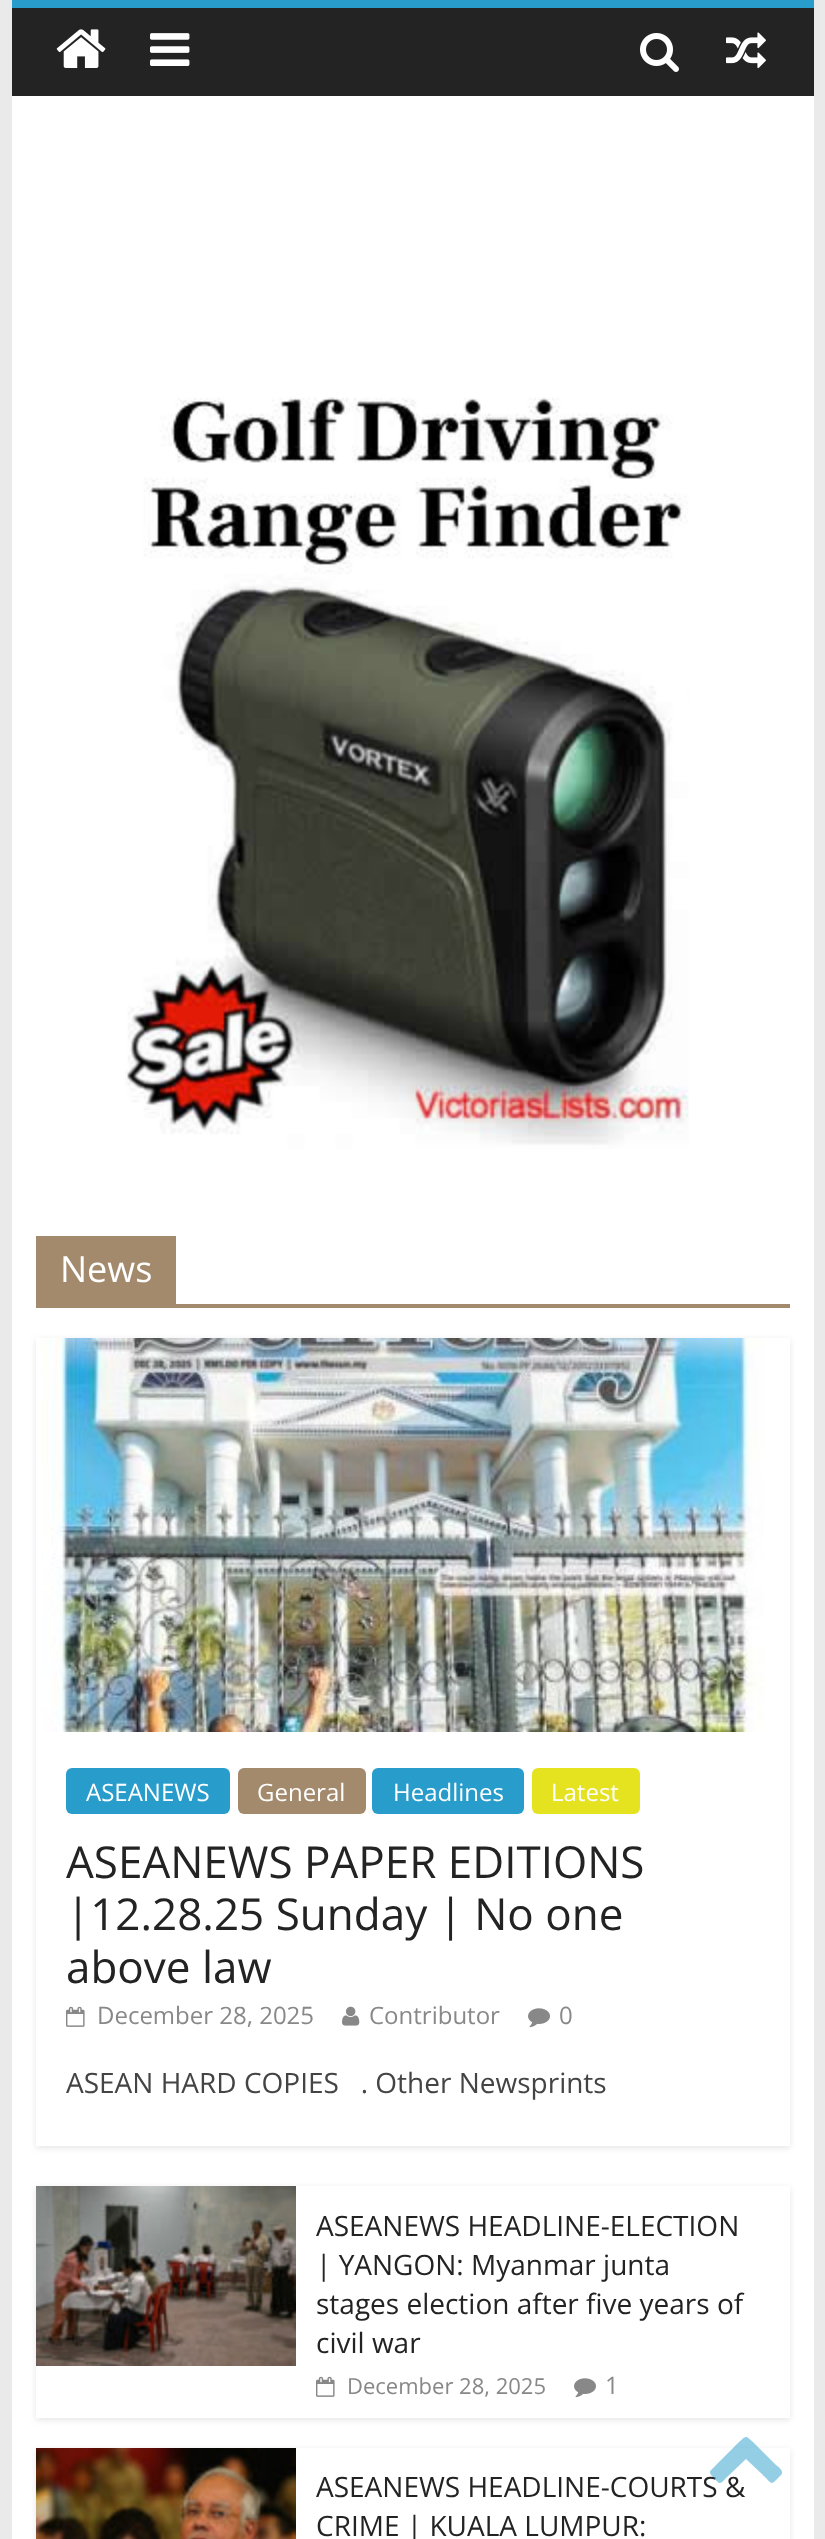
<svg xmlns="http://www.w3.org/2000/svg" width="825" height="2539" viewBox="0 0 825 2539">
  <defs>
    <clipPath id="clip1"><path d="M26 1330H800V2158H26ZM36 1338H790V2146H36Z" clip-rule="evenodd"/></clipPath>
    <filter id="blur1" x="-50%" y="-200%" width="200%" height="500%"><feGaussianBlur stdDeviation="3"/></filter>
    <clipPath id="clip2"><path d="M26 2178H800V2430H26ZM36 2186H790V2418H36Z" clip-rule="evenodd"/></clipPath>
    <clipPath id="clip3"><path d="M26 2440H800V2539H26ZM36 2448H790V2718H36Z" clip-rule="evenodd"/></clipPath>
  </defs>
  <rect width="100%" height="100%" fill="#eaeaea"/>
  <rect x="12" y="8" width="802" height="88" fill="#232323"/>
  <rect x="12" y="0" width="802" height="8" fill="#289dcc"/>
  <image x="56" y="29" width="50" height="39" href="img1.png"/>
  <image x="150" y="33" width="40" height="33" href="img2.png"/>
  <image x="640" y="33" width="39" height="39" href="img3.png"/>
  <image x="726" y="32" width="40" height="37" href="img4.png"/>
  <rect x="12" y="96" width="802" height="2443" fill="#ffffff"/>
  <image x="125" y="397" width="564" height="752" href="img5.png"/>
  <rect x="36" y="1304" width="754" height="4" fill="#a38a6d"/>
  <rect x="36" y="1236" width="140" height="68" fill="#a38a6d"/>
  <text x="60" y="1282" font-family="Open Sans" font-size="36" fill="#ffffff">News</text>
  <g clip-path="url(#clip1)">
    <rect x="36" y="1340" width="754" height="808" fill="#000000" fill-opacity="0.1" filter="url(#blur1)"/>
  </g>
  <image x="41" y="1338" width="723" height="394" href="img6.png"/>
  <rect x="66" y="1768" width="164" height="46" rx="6" fill="#289dcc"/>
  <text x="86" y="1801" font-family="Open Sans" font-size="24" fill="#ffffff">ASEANEWS</text>
  <rect x="238" y="1768" width="128" height="46" rx="6" fill="#a38a6d"/>
  <text x="257" y="1801" font-family="Open Sans" font-size="24" fill="#ffffff">General</text>
  <rect x="372" y="1768" width="152" height="46" rx="6" fill="#289dcc"/>
  <text x="393" y="1801" font-family="Open Sans" font-size="24" fill="#ffffff">Headlines</text>
  <rect x="532" y="1768" width="108" height="46" rx="6" fill="#e5e220"/>
  <text x="551" y="1801" font-family="Open Sans" font-size="24" fill="#ffffff">Latest</text>
  <text x="66" y="1878" font-family="Open Sans" font-size="44" fill="#232323">ASEANEWS PAPER EDITIONS</text>
  <text x="66" y="1930" font-family="Open Sans" font-size="44" fill="#232323">|12.28.25 Sunday | No one</text>
  <text x="66" y="1983" font-family="Open Sans" font-size="44" fill="#232323">above law</text>
  <image x="66" y="2006" width="19" height="21" href="img7.png"/>
  <text x="97" y="2024" font-family="Open Sans" font-size="24" fill="#888888">December 28, 2025</text>
  <image x="342" y="2006" width="18" height="20" href="img8.png"/>
  <text x="369" y="2024" font-family="Open Sans" font-size="24" fill="#888888">Contributor</text>
  <image x="528" y="2008" width="22" height="20" href="img9.png"/>
  <text x="559" y="2024" font-family="Open Sans" font-size="24" fill="#888888">0</text>
  <text x="66" y="2093" font-family="Open Sans" font-size="28" fill="#444444" xml:space="preserve">ASEAN HARD COPIES   . Other Newsprints</text>
  <g clip-path="url(#clip2)">
    <rect x="36" y="2188" width="754" height="232" fill="#000000" fill-opacity="0.1" filter="url(#blur1)"/>
  </g>
  <image x="36" y="2186" width="260" height="180" href="img10.png"/>
  <text x="316" y="2236" font-family="Open Sans" font-size="28" fill="#232323">ASEANEWS HEADLINE-ELECTION</text>
  <text x="316" y="2275" font-family="Open Sans" font-size="28" fill="#232323">| YANGON: Myanmar junta</text>
  <text x="316" y="2314" font-family="Open Sans" font-size="28" fill="#232323">stages election after five years of</text>
  <text x="316" y="2353" font-family="Open Sans" font-size="28" fill="#232323">civil war</text>
  <image x="316" y="2376" width="19" height="21" href="img7.png"/>
  <text x="347" y="2394" font-family="Open Sans" font-size="22" fill="#888888">December 28, 2025</text>
  <image x="574" y="2378" width="22" height="20" href="img9.png"/>
  <text x="605" y="2394" font-family="Open Sans" font-size="24" fill="#888888">1</text>
  <g clip-path="url(#clip3)">
    <rect x="36" y="2450" width="754" height="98" fill="#000000" fill-opacity="0.1" filter="url(#blur1)"/>
  </g>
  <image x="36" y="2448" width="260" height="91" href="img11.png"/>
  <text x="316" y="2497" font-family="Open Sans" font-size="28" fill="#232323">ASEANEWS HEADLINE-COURTS &amp;</text>
  <text x="316" y="2536" font-family="Open Sans" font-size="28" fill="#232323">CRIME | KUALA LUMPUR:</text>
  <path d="M781 2475L775 2481C771 2485 770 2482 766 2478L746 2459L726 2478C719 2486 720 2484 712 2476C707 2471 712 2470 716 2465L738 2443C747 2435 745 2435 754 2443L776 2465C777 2466 785 2471 781 2475Z" fill="#289dcc" fill-opacity="0.5"/>
</svg>
